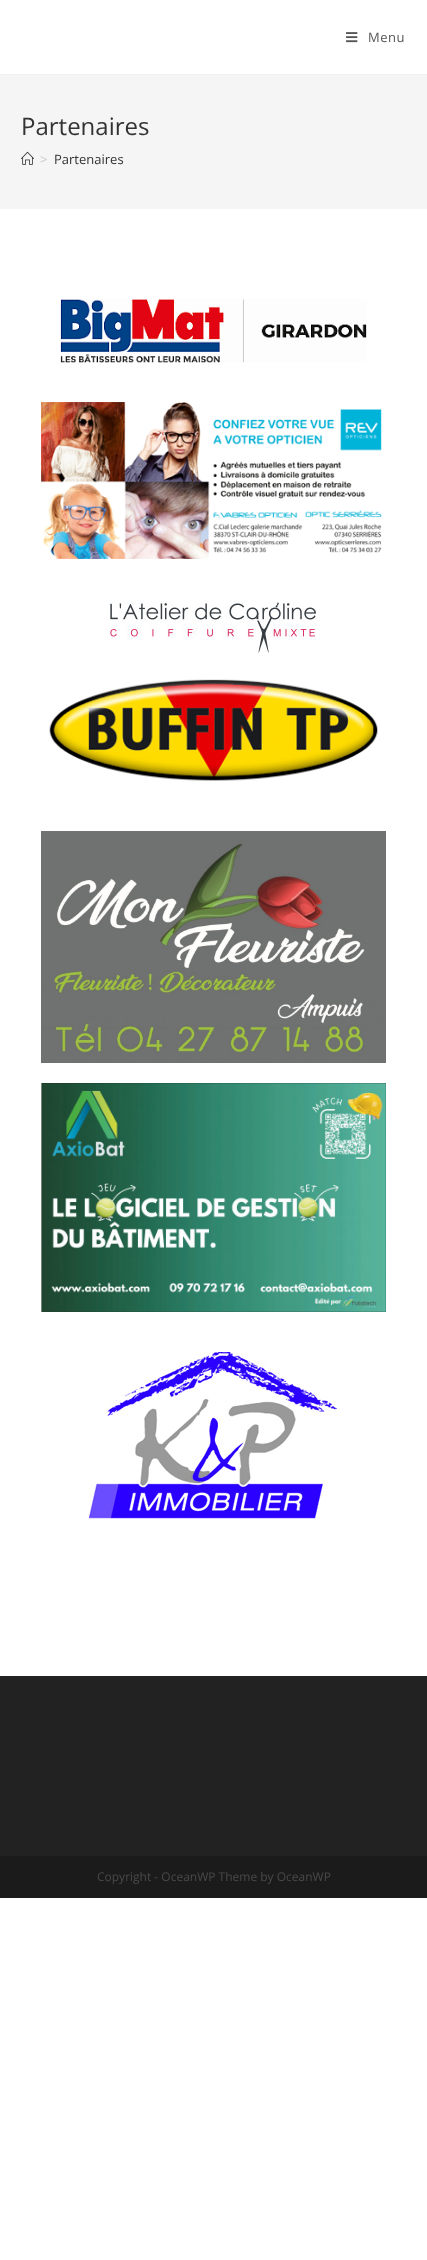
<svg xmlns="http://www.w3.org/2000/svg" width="427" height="2260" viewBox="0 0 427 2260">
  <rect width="100%" height="100%" fill="#ffffff"/>
  <rect x="0" y="74" width="427" height="1" fill="#f1f1f1"/>
  <image x="346" y="32" width="12" height="11" href="img1.png"/>
  <text x="368" y="42" font-family="Open Sans" font-size="13" letter-spacing="0.5" fill="#555555">Menu</text>
  <rect x="0" y="75" width="427" height="134" fill="#f5f5f5"/>
  <text x="21" y="135" font-family="Open Sans" font-size="24" fill="#333333">Partenaires</text>
  <image x="21" y="151" width="13" height="14" href="img2.png"/>
  <text x="40" y="164" font-family="Open Sans" font-size="13" fill="#c6c6c6">&gt;</text>
  <text x="54" y="164" font-family="Open Sans" font-size="13" fill="#333333">Partenaires</text>
  <image x="60" y="299" width="307" height="64" href="img3.png"/>
  <image x="41" y="402" width="341" height="157" href="img4.png"/>
  <image x="110" y="599" width="206" height="54" href="img5.png"/>
  <image x="49" y="679" width="329" height="102" href="img6.png"/>
  <image x="41" y="831" width="345" height="232" href="img7.png"/>
  <image x="41" y="1083" width="345" height="229" href="img8.png"/>
  <image x="89" y="1352" width="248" height="168" href="img9.png"/>
  <rect x="0" y="1676" width="427" height="180" fill="#222222"/>
  <rect x="0" y="1856" width="427" height="42" fill="#1b1b1b"/>
  <text x="97" y="1881" font-family="Open Sans" font-size="12" fill="#4a4a4a">Copyright - OceanWP Theme by OceanWP</text>
</svg>
